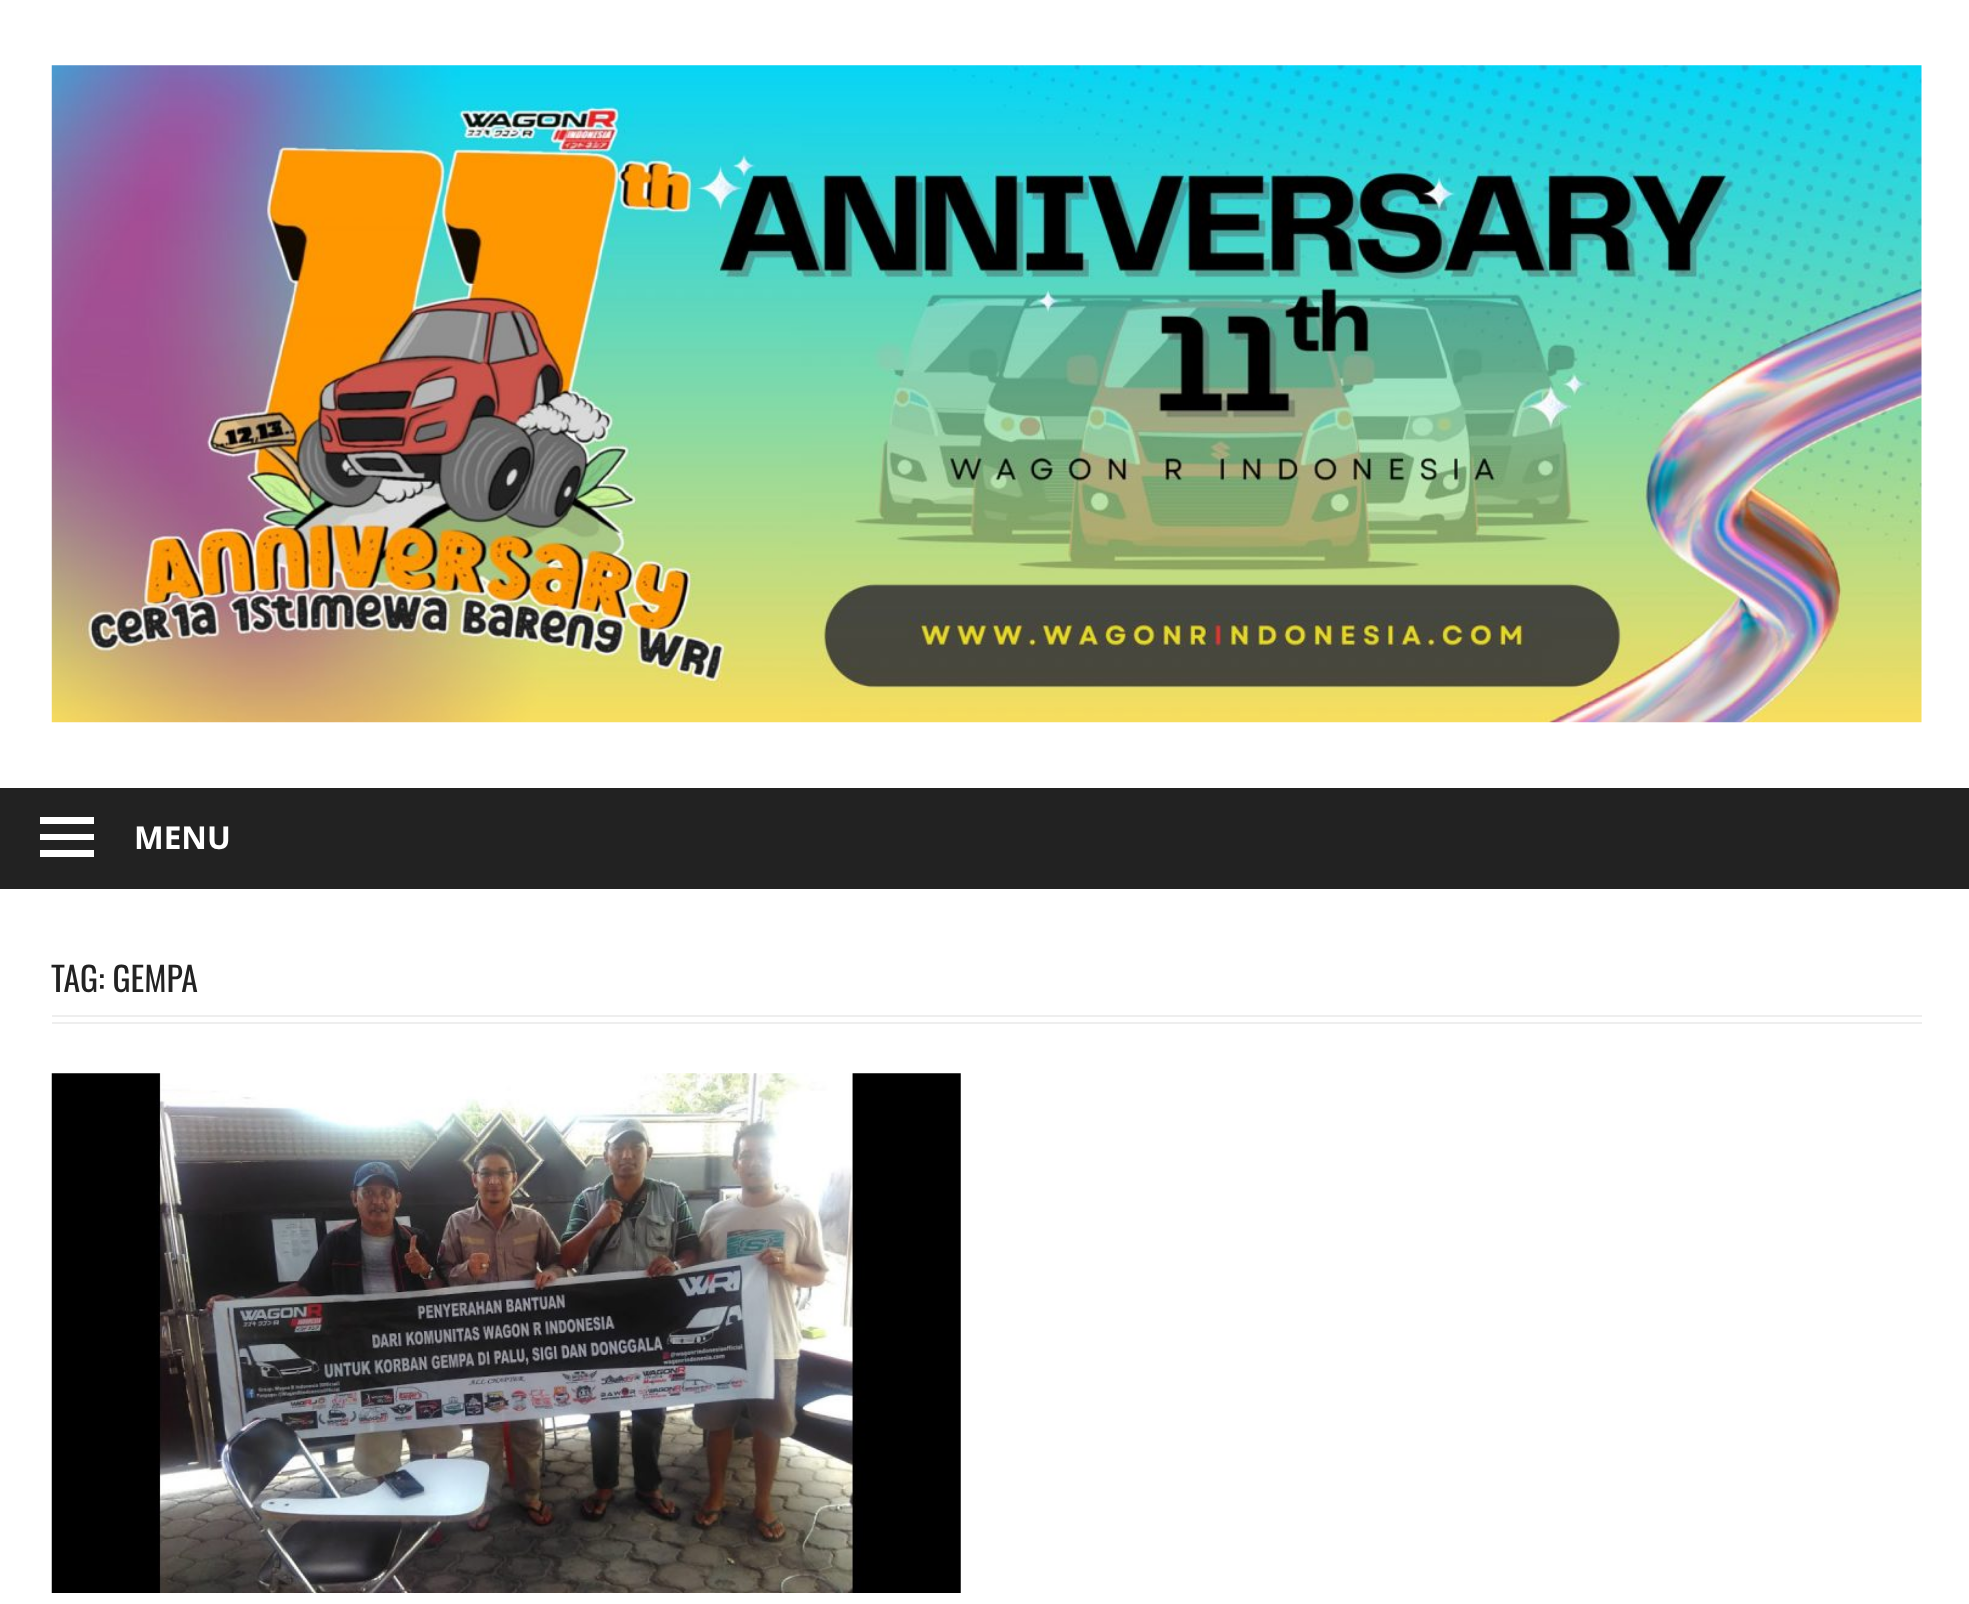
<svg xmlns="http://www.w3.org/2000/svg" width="1969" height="1604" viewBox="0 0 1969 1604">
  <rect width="100%" height="100%" fill="#ffffff"/>
  <image x="51" y="65" width="1871" height="658" href="img1.png"/>
  <rect x="0" y="788" width="1969" height="101" fill="#222222"/>
  <path d="M40 857V850H94V857ZM40 817H94V824H40ZM40 840V834H94V840Z" fill="#ffffff"/>
  <text x="134" y="849" font-family="Open Sans" font-size="31.5" font-weight="bold" fill="#ffffff">MENU</text>
  <rect x="52" y="1022" width="1870" height="2" fill="#eeeeee"/>
  <rect x="52" y="1015" width="1870" height="2" fill="#eeeeee"/>
  <text x="51" y="992" font-family="Oswald" font-size="33.75" fill="#222222">TAG: GEMPA</text>
  <image x="51" y="1073" width="910" height="520" href="img2.png"/>
</svg>
